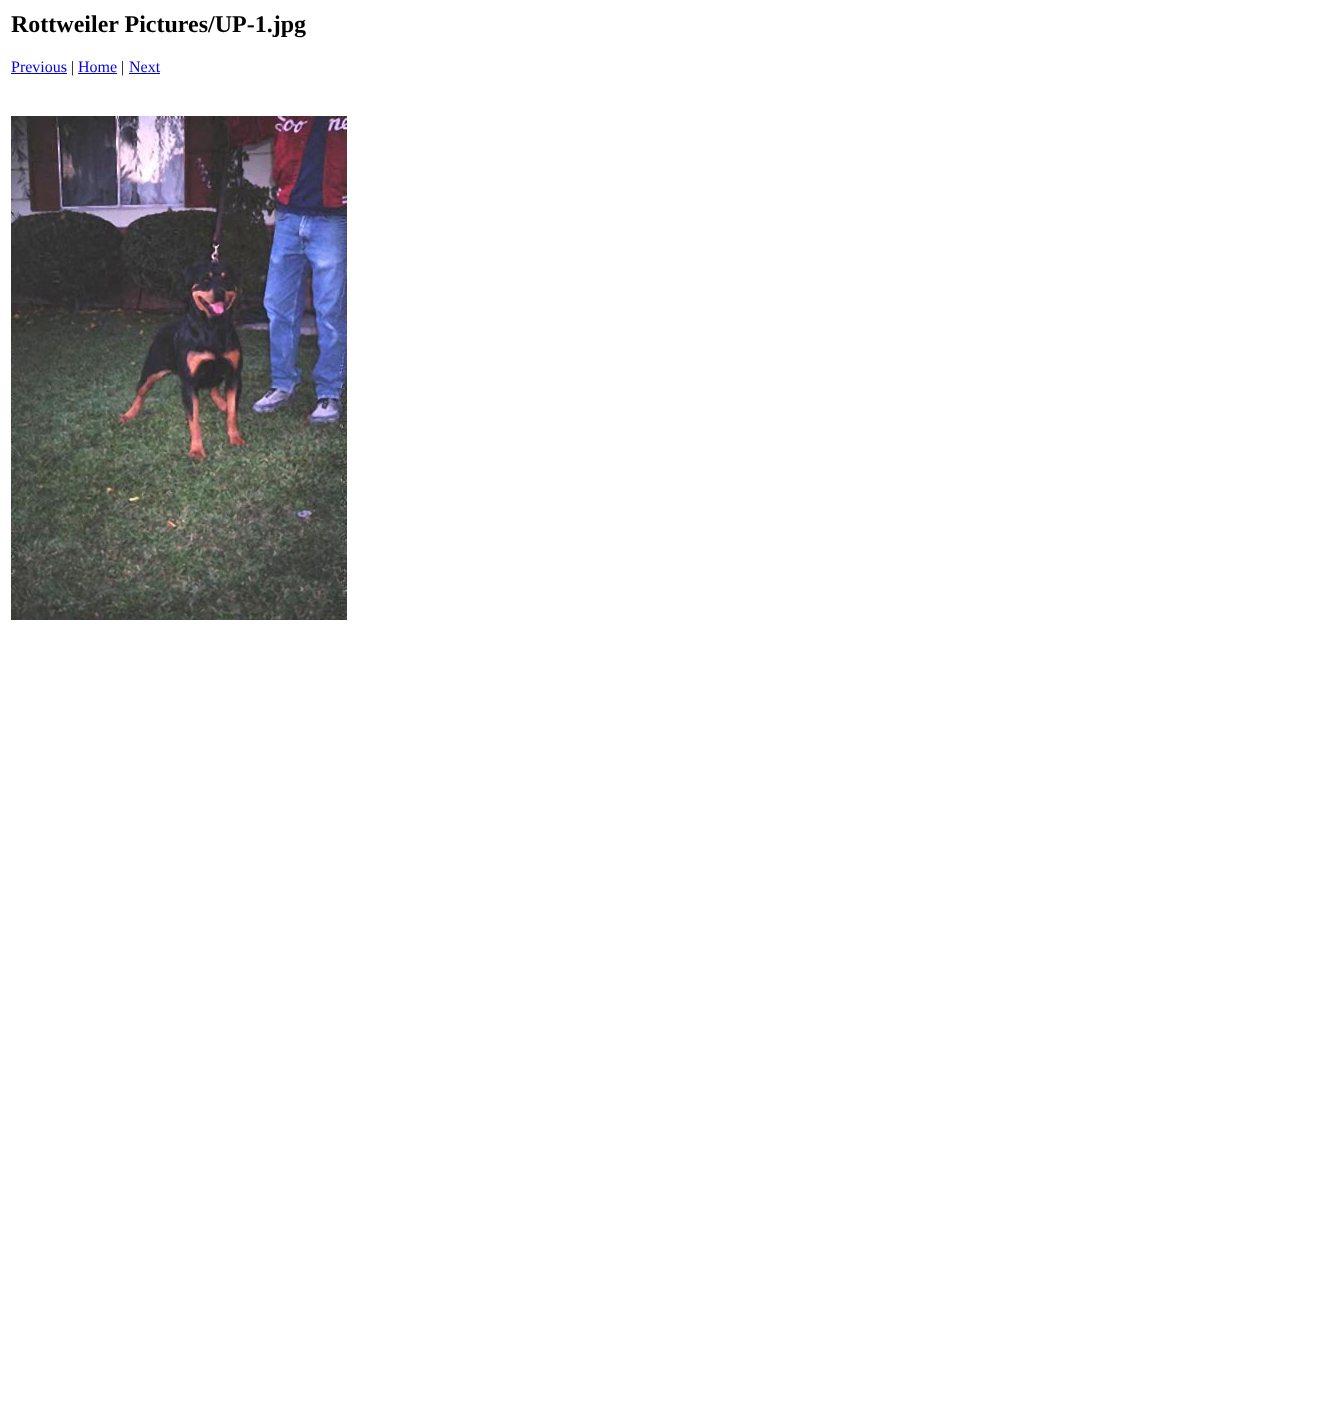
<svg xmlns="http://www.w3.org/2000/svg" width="1319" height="1408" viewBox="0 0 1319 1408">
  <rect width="100%" height="100%" fill="#ffffff"/>
  <text x="11" y="32" font-family="Liberation Serif" font-size="24" font-weight="bold" fill="#000000">Rottweiler Pictures/UP-1.jpg</text>
  <text x="11" y="72" font-family="Liberation Serif" font-size="16" fill="#0000ee">Previous</text>
  <rect x="11" y="73" width="56" height="1" fill="#0000ee"/>
  <text x="71" y="72" font-family="Liberation Serif" font-size="16" fill="#000000">|</text>
  <text x="78" y="72" font-family="Liberation Serif" font-size="16" fill="#0000ee">Home</text>
  <rect x="78" y="73" width="39" height="1" fill="#0000ee"/>
  <text x="121" y="72" font-family="Liberation Serif" font-size="16" fill="#000000">|</text>
  <text x="129" y="72" font-family="Liberation Serif" font-size="16" fill="#0000ee">Next</text>
  <rect x="129" y="73" width="31" height="1" fill="#0000ee"/>
  <image x="11" y="116" width="336" height="504" href="img1.png"/>
</svg>
